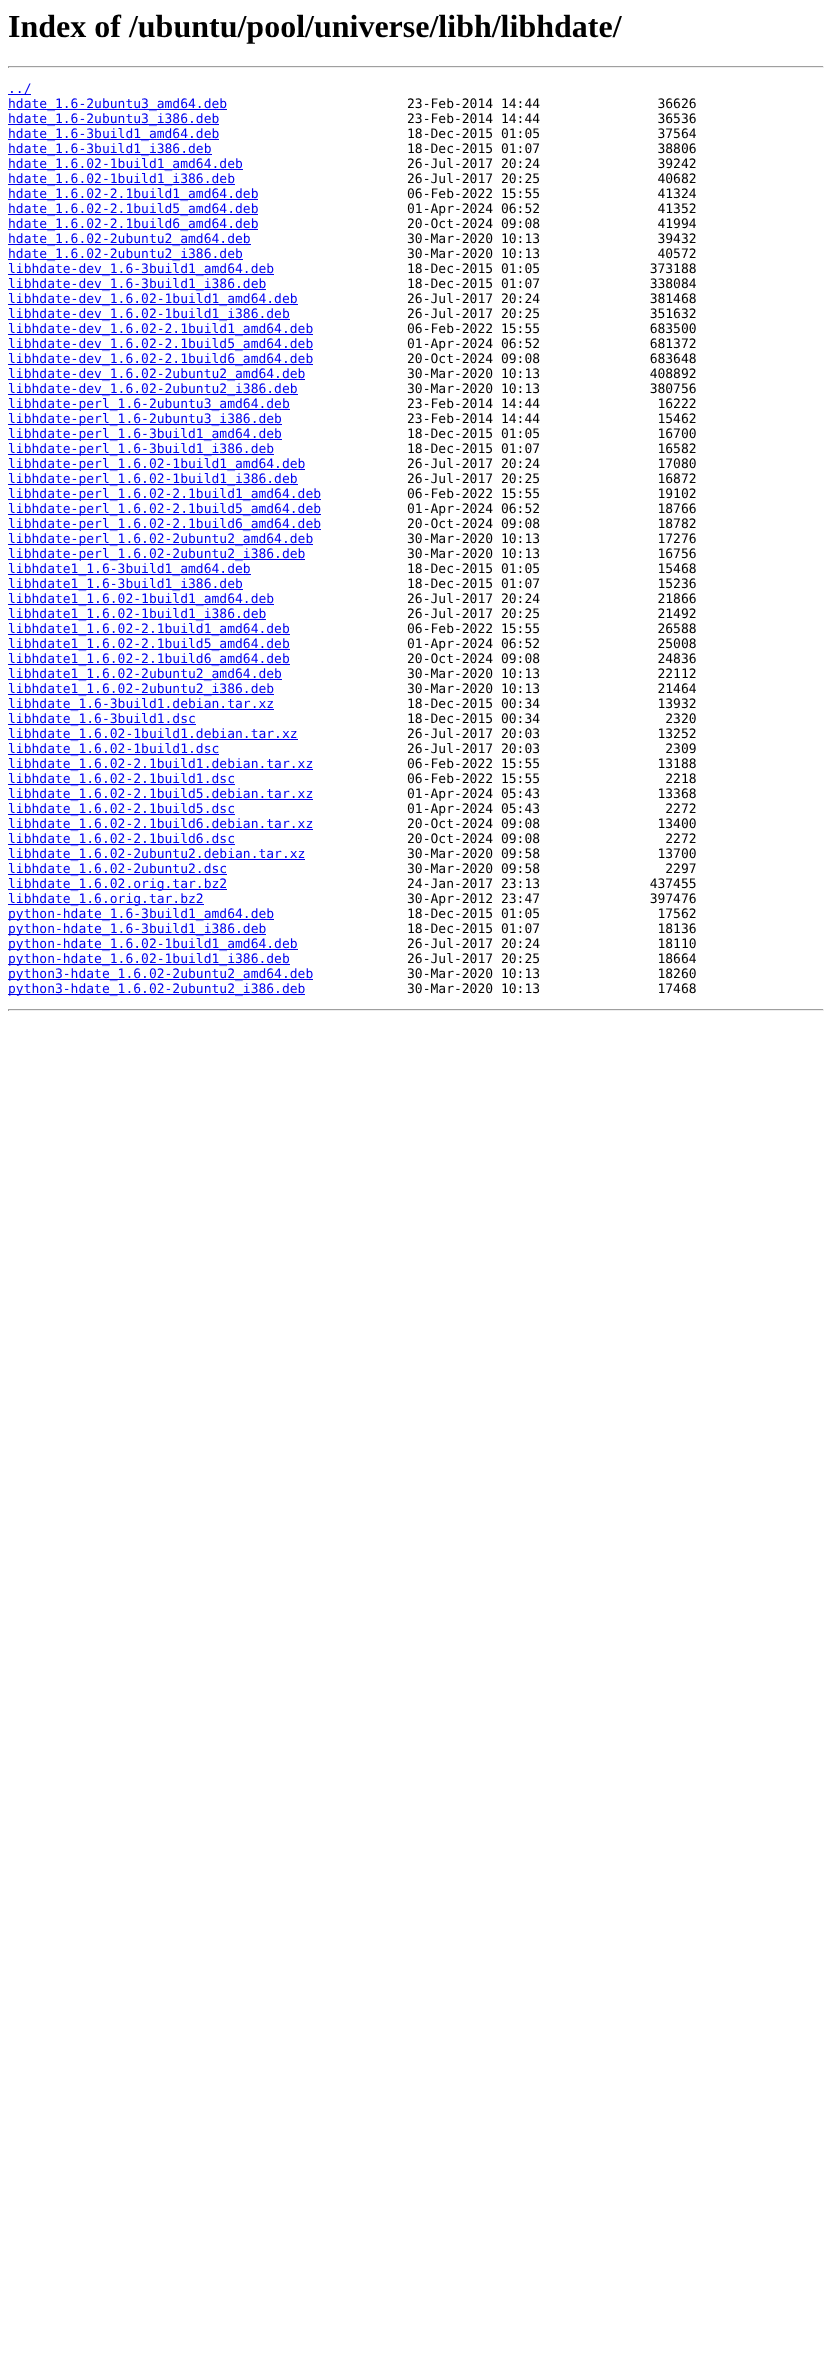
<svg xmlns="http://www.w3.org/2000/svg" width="832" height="2379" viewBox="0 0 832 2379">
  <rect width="100%" height="100%" fill="#ffffff"/>
  <text x="8" y="37" font-family="Liberation Serif" font-size="32" font-weight="bold" fill="#000000">Index of /ubuntu/pool/universe/libh/libhdate/</text>
  <rect x="8" y="66" width="816" height="1" fill="#9f9f9f"/>
  <rect x="823" y="66" width="1" height="2" fill="#eeeeee"/>
  <rect x="8" y="67" width="816" height="1" fill="#eeeeee"/>
  <rect x="8" y="66" width="1" height="2" fill="#9f9f9f"/>
  <rect x="8" y="94" width="23" height="1" fill="#0000ee"/>
  <text x="8" y="93" font-family="DejaVu Sans Mono" font-size="13" fill="#0000ee">../</text>
  <rect x="8" y="109" width="219" height="1" fill="#0000ee"/>
  <text x="8" y="108" font-family="DejaVu Sans Mono" font-size="13" fill="#0000ee">hdate_1.6-2ubuntu3_amd64.deb</text>
  <text x="407" y="108" font-family="DejaVu Sans Mono" font-size="13" fill="#000000" xml:space="preserve">23-Feb-2014 14:44               36626</text>
  <rect x="8" y="124" width="211" height="1" fill="#0000ee"/>
  <text x="8" y="123" font-family="DejaVu Sans Mono" font-size="13" fill="#0000ee">hdate_1.6-2ubuntu3_i386.deb</text>
  <text x="407" y="123" font-family="DejaVu Sans Mono" font-size="13" fill="#000000" xml:space="preserve">23-Feb-2014 14:44               36536</text>
  <rect x="8" y="139" width="211" height="1" fill="#0000ee"/>
  <text x="8" y="138" font-family="DejaVu Sans Mono" font-size="13" fill="#0000ee">hdate_1.6-3build1_amd64.deb</text>
  <text x="407" y="138" font-family="DejaVu Sans Mono" font-size="13" fill="#000000" xml:space="preserve">18-Dec-2015 01:05               37564</text>
  <rect x="8" y="154" width="204" height="1" fill="#0000ee"/>
  <text x="8" y="153" font-family="DejaVu Sans Mono" font-size="13" fill="#0000ee">hdate_1.6-3build1_i386.deb</text>
  <text x="407" y="153" font-family="DejaVu Sans Mono" font-size="13" fill="#000000" xml:space="preserve">18-Dec-2015 01:07               38806</text>
  <rect x="8" y="169" width="235" height="1" fill="#0000ee"/>
  <text x="8" y="168" font-family="DejaVu Sans Mono" font-size="13" fill="#0000ee">hdate_1.6.02-1build1_amd64.deb</text>
  <text x="407" y="168" font-family="DejaVu Sans Mono" font-size="13" fill="#000000" xml:space="preserve">26-Jul-2017 20:24               39242</text>
  <rect x="8" y="184" width="227" height="1" fill="#0000ee"/>
  <text x="8" y="183" font-family="DejaVu Sans Mono" font-size="13" fill="#0000ee">hdate_1.6.02-1build1_i386.deb</text>
  <text x="407" y="183" font-family="DejaVu Sans Mono" font-size="13" fill="#000000" xml:space="preserve">26-Jul-2017 20:25               40682</text>
  <rect x="8" y="199" width="250" height="1" fill="#0000ee"/>
  <text x="8" y="198" font-family="DejaVu Sans Mono" font-size="13" fill="#0000ee">hdate_1.6.02-2.1build1_amd64.deb</text>
  <text x="407" y="198" font-family="DejaVu Sans Mono" font-size="13" fill="#000000" xml:space="preserve">06-Feb-2022 15:55               41324</text>
  <rect x="8" y="214" width="250" height="1" fill="#0000ee"/>
  <text x="8" y="213" font-family="DejaVu Sans Mono" font-size="13" fill="#0000ee">hdate_1.6.02-2.1build5_amd64.deb</text>
  <text x="407" y="213" font-family="DejaVu Sans Mono" font-size="13" fill="#000000" xml:space="preserve">01-Apr-2024 06:52               41352</text>
  <rect x="8" y="229" width="250" height="1" fill="#0000ee"/>
  <text x="8" y="228" font-family="DejaVu Sans Mono" font-size="13" fill="#0000ee">hdate_1.6.02-2.1build6_amd64.deb</text>
  <text x="407" y="228" font-family="DejaVu Sans Mono" font-size="13" fill="#000000" xml:space="preserve">20-Oct-2024 09:08               41994</text>
  <rect x="8" y="244" width="243" height="1" fill="#0000ee"/>
  <text x="8" y="243" font-family="DejaVu Sans Mono" font-size="13" fill="#0000ee">hdate_1.6.02-2ubuntu2_amd64.deb</text>
  <text x="407" y="243" font-family="DejaVu Sans Mono" font-size="13" fill="#000000" xml:space="preserve">30-Mar-2020 10:13               39432</text>
  <rect x="8" y="259" width="235" height="1" fill="#0000ee"/>
  <text x="8" y="258" font-family="DejaVu Sans Mono" font-size="13" fill="#0000ee">hdate_1.6.02-2ubuntu2_i386.deb</text>
  <text x="407" y="258" font-family="DejaVu Sans Mono" font-size="13" fill="#000000" xml:space="preserve">30-Mar-2020 10:13               40572</text>
  <rect x="8" y="274" width="266" height="1" fill="#0000ee"/>
  <text x="8" y="273" font-family="DejaVu Sans Mono" font-size="13" fill="#0000ee">libhdate-dev_1.6-3build1_amd64.deb</text>
  <text x="407" y="273" font-family="DejaVu Sans Mono" font-size="13" fill="#000000" xml:space="preserve">18-Dec-2015 01:05              373188</text>
  <rect x="8" y="289" width="258" height="1" fill="#0000ee"/>
  <text x="8" y="288" font-family="DejaVu Sans Mono" font-size="13" fill="#0000ee">libhdate-dev_1.6-3build1_i386.deb</text>
  <text x="407" y="288" font-family="DejaVu Sans Mono" font-size="13" fill="#000000" xml:space="preserve">18-Dec-2015 01:07              338084</text>
  <rect x="8" y="304" width="290" height="1" fill="#0000ee"/>
  <text x="8" y="303" font-family="DejaVu Sans Mono" font-size="13" fill="#0000ee">libhdate-dev_1.6.02-1build1_amd64.deb</text>
  <text x="407" y="303" font-family="DejaVu Sans Mono" font-size="13" fill="#000000" xml:space="preserve">26-Jul-2017 20:24              381468</text>
  <rect x="8" y="319" width="282" height="1" fill="#0000ee"/>
  <text x="8" y="318" font-family="DejaVu Sans Mono" font-size="13" fill="#0000ee">libhdate-dev_1.6.02-1build1_i386.deb</text>
  <text x="407" y="318" font-family="DejaVu Sans Mono" font-size="13" fill="#000000" xml:space="preserve">26-Jul-2017 20:25              351632</text>
  <rect x="8" y="334" width="305" height="1" fill="#0000ee"/>
  <text x="8" y="333" font-family="DejaVu Sans Mono" font-size="13" fill="#0000ee">libhdate-dev_1.6.02-2.1build1_amd64.deb</text>
  <text x="407" y="333" font-family="DejaVu Sans Mono" font-size="13" fill="#000000" xml:space="preserve">06-Feb-2022 15:55              683500</text>
  <rect x="8" y="349" width="305" height="1" fill="#0000ee"/>
  <text x="8" y="348" font-family="DejaVu Sans Mono" font-size="13" fill="#0000ee">libhdate-dev_1.6.02-2.1build5_amd64.deb</text>
  <text x="407" y="348" font-family="DejaVu Sans Mono" font-size="13" fill="#000000" xml:space="preserve">01-Apr-2024 06:52              681372</text>
  <rect x="8" y="364" width="305" height="1" fill="#0000ee"/>
  <text x="8" y="363" font-family="DejaVu Sans Mono" font-size="13" fill="#0000ee">libhdate-dev_1.6.02-2.1build6_amd64.deb</text>
  <text x="407" y="363" font-family="DejaVu Sans Mono" font-size="13" fill="#000000" xml:space="preserve">20-Oct-2024 09:08              683648</text>
  <rect x="8" y="379" width="297" height="1" fill="#0000ee"/>
  <text x="8" y="378" font-family="DejaVu Sans Mono" font-size="13" fill="#0000ee">libhdate-dev_1.6.02-2ubuntu2_amd64.deb</text>
  <text x="407" y="378" font-family="DejaVu Sans Mono" font-size="13" fill="#000000" xml:space="preserve">30-Mar-2020 10:13              408892</text>
  <rect x="8" y="394" width="290" height="1" fill="#0000ee"/>
  <text x="8" y="393" font-family="DejaVu Sans Mono" font-size="13" fill="#0000ee">libhdate-dev_1.6.02-2ubuntu2_i386.deb</text>
  <text x="407" y="393" font-family="DejaVu Sans Mono" font-size="13" fill="#000000" xml:space="preserve">30-Mar-2020 10:13              380756</text>
  <rect x="8" y="409" width="282" height="1" fill="#0000ee"/>
  <text x="8" y="408" font-family="DejaVu Sans Mono" font-size="13" fill="#0000ee">libhdate-perl_1.6-2ubuntu3_amd64.deb</text>
  <text x="407" y="408" font-family="DejaVu Sans Mono" font-size="13" fill="#000000" xml:space="preserve">23-Feb-2014 14:44               16222</text>
  <rect x="8" y="424" width="274" height="1" fill="#0000ee"/>
  <text x="8" y="423" font-family="DejaVu Sans Mono" font-size="13" fill="#0000ee">libhdate-perl_1.6-2ubuntu3_i386.deb</text>
  <text x="407" y="423" font-family="DejaVu Sans Mono" font-size="13" fill="#000000" xml:space="preserve">23-Feb-2014 14:44               15462</text>
  <rect x="8" y="439" width="274" height="1" fill="#0000ee"/>
  <text x="8" y="438" font-family="DejaVu Sans Mono" font-size="13" fill="#0000ee">libhdate-perl_1.6-3build1_amd64.deb</text>
  <text x="407" y="438" font-family="DejaVu Sans Mono" font-size="13" fill="#000000" xml:space="preserve">18-Dec-2015 01:05               16700</text>
  <rect x="8" y="454" width="266" height="1" fill="#0000ee"/>
  <text x="8" y="453" font-family="DejaVu Sans Mono" font-size="13" fill="#0000ee">libhdate-perl_1.6-3build1_i386.deb</text>
  <text x="407" y="453" font-family="DejaVu Sans Mono" font-size="13" fill="#000000" xml:space="preserve">18-Dec-2015 01:07               16582</text>
  <rect x="8" y="469" width="297" height="1" fill="#0000ee"/>
  <text x="8" y="468" font-family="DejaVu Sans Mono" font-size="13" fill="#0000ee">libhdate-perl_1.6.02-1build1_amd64.deb</text>
  <text x="407" y="468" font-family="DejaVu Sans Mono" font-size="13" fill="#000000" xml:space="preserve">26-Jul-2017 20:24               17080</text>
  <rect x="8" y="484" width="290" height="1" fill="#0000ee"/>
  <text x="8" y="483" font-family="DejaVu Sans Mono" font-size="13" fill="#0000ee">libhdate-perl_1.6.02-1build1_i386.deb</text>
  <text x="407" y="483" font-family="DejaVu Sans Mono" font-size="13" fill="#000000" xml:space="preserve">26-Jul-2017 20:25               16872</text>
  <rect x="8" y="499" width="313" height="1" fill="#0000ee"/>
  <text x="8" y="498" font-family="DejaVu Sans Mono" font-size="13" fill="#0000ee">libhdate-perl_1.6.02-2.1build1_amd64.deb</text>
  <text x="407" y="498" font-family="DejaVu Sans Mono" font-size="13" fill="#000000" xml:space="preserve">06-Feb-2022 15:55               19102</text>
  <rect x="8" y="514" width="313" height="1" fill="#0000ee"/>
  <text x="8" y="513" font-family="DejaVu Sans Mono" font-size="13" fill="#0000ee">libhdate-perl_1.6.02-2.1build5_amd64.deb</text>
  <text x="407" y="513" font-family="DejaVu Sans Mono" font-size="13" fill="#000000" xml:space="preserve">01-Apr-2024 06:52               18766</text>
  <rect x="8" y="529" width="313" height="1" fill="#0000ee"/>
  <text x="8" y="528" font-family="DejaVu Sans Mono" font-size="13" fill="#0000ee">libhdate-perl_1.6.02-2.1build6_amd64.deb</text>
  <text x="407" y="528" font-family="DejaVu Sans Mono" font-size="13" fill="#000000" xml:space="preserve">20-Oct-2024 09:08               18782</text>
  <rect x="8" y="544" width="305" height="1" fill="#0000ee"/>
  <text x="8" y="543" font-family="DejaVu Sans Mono" font-size="13" fill="#0000ee">libhdate-perl_1.6.02-2ubuntu2_amd64.deb</text>
  <text x="407" y="543" font-family="DejaVu Sans Mono" font-size="13" fill="#000000" xml:space="preserve">30-Mar-2020 10:13               17276</text>
  <rect x="8" y="559" width="297" height="1" fill="#0000ee"/>
  <text x="8" y="558" font-family="DejaVu Sans Mono" font-size="13" fill="#0000ee">libhdate-perl_1.6.02-2ubuntu2_i386.deb</text>
  <text x="407" y="558" font-family="DejaVu Sans Mono" font-size="13" fill="#000000" xml:space="preserve">30-Mar-2020 10:13               16756</text>
  <rect x="8" y="574" width="243" height="1" fill="#0000ee"/>
  <text x="8" y="573" font-family="DejaVu Sans Mono" font-size="13" fill="#0000ee">libhdate1_1.6-3build1_amd64.deb</text>
  <text x="407" y="573" font-family="DejaVu Sans Mono" font-size="13" fill="#000000" xml:space="preserve">18-Dec-2015 01:05               15468</text>
  <rect x="8" y="589" width="235" height="1" fill="#0000ee"/>
  <text x="8" y="588" font-family="DejaVu Sans Mono" font-size="13" fill="#0000ee">libhdate1_1.6-3build1_i386.deb</text>
  <text x="407" y="588" font-family="DejaVu Sans Mono" font-size="13" fill="#000000" xml:space="preserve">18-Dec-2015 01:07               15236</text>
  <rect x="8" y="604" width="266" height="1" fill="#0000ee"/>
  <text x="8" y="603" font-family="DejaVu Sans Mono" font-size="13" fill="#0000ee">libhdate1_1.6.02-1build1_amd64.deb</text>
  <text x="407" y="603" font-family="DejaVu Sans Mono" font-size="13" fill="#000000" xml:space="preserve">26-Jul-2017 20:24               21866</text>
  <rect x="8" y="619" width="258" height="1" fill="#0000ee"/>
  <text x="8" y="618" font-family="DejaVu Sans Mono" font-size="13" fill="#0000ee">libhdate1_1.6.02-1build1_i386.deb</text>
  <text x="407" y="618" font-family="DejaVu Sans Mono" font-size="13" fill="#000000" xml:space="preserve">26-Jul-2017 20:25               21492</text>
  <rect x="8" y="634" width="282" height="1" fill="#0000ee"/>
  <text x="8" y="633" font-family="DejaVu Sans Mono" font-size="13" fill="#0000ee">libhdate1_1.6.02-2.1build1_amd64.deb</text>
  <text x="407" y="633" font-family="DejaVu Sans Mono" font-size="13" fill="#000000" xml:space="preserve">06-Feb-2022 15:55               26588</text>
  <rect x="8" y="649" width="282" height="1" fill="#0000ee"/>
  <text x="8" y="648" font-family="DejaVu Sans Mono" font-size="13" fill="#0000ee">libhdate1_1.6.02-2.1build5_amd64.deb</text>
  <text x="407" y="648" font-family="DejaVu Sans Mono" font-size="13" fill="#000000" xml:space="preserve">01-Apr-2024 06:52               25008</text>
  <rect x="8" y="664" width="282" height="1" fill="#0000ee"/>
  <text x="8" y="663" font-family="DejaVu Sans Mono" font-size="13" fill="#0000ee">libhdate1_1.6.02-2.1build6_amd64.deb</text>
  <text x="407" y="663" font-family="DejaVu Sans Mono" font-size="13" fill="#000000" xml:space="preserve">20-Oct-2024 09:08               24836</text>
  <rect x="8" y="679" width="274" height="1" fill="#0000ee"/>
  <text x="8" y="678" font-family="DejaVu Sans Mono" font-size="13" fill="#0000ee">libhdate1_1.6.02-2ubuntu2_amd64.deb</text>
  <text x="407" y="678" font-family="DejaVu Sans Mono" font-size="13" fill="#000000" xml:space="preserve">30-Mar-2020 10:13               22112</text>
  <rect x="8" y="694" width="266" height="1" fill="#0000ee"/>
  <text x="8" y="693" font-family="DejaVu Sans Mono" font-size="13" fill="#0000ee">libhdate1_1.6.02-2ubuntu2_i386.deb</text>
  <text x="407" y="693" font-family="DejaVu Sans Mono" font-size="13" fill="#000000" xml:space="preserve">30-Mar-2020 10:13               21464</text>
  <rect x="8" y="709" width="266" height="1" fill="#0000ee"/>
  <text x="8" y="708" font-family="DejaVu Sans Mono" font-size="13" fill="#0000ee">libhdate_1.6-3build1.debian.tar.xz</text>
  <text x="407" y="708" font-family="DejaVu Sans Mono" font-size="13" fill="#000000" xml:space="preserve">18-Dec-2015 00:34               13932</text>
  <rect x="8" y="724" width="188" height="1" fill="#0000ee"/>
  <text x="8" y="723" font-family="DejaVu Sans Mono" font-size="13" fill="#0000ee">libhdate_1.6-3build1.dsc</text>
  <text x="407" y="723" font-family="DejaVu Sans Mono" font-size="13" fill="#000000" xml:space="preserve">18-Dec-2015 00:34                2320</text>
  <rect x="8" y="739" width="290" height="1" fill="#0000ee"/>
  <text x="8" y="738" font-family="DejaVu Sans Mono" font-size="13" fill="#0000ee">libhdate_1.6.02-1build1.debian.tar.xz</text>
  <text x="407" y="738" font-family="DejaVu Sans Mono" font-size="13" fill="#000000" xml:space="preserve">26-Jul-2017 20:03               13252</text>
  <rect x="8" y="754" width="211" height="1" fill="#0000ee"/>
  <text x="8" y="753" font-family="DejaVu Sans Mono" font-size="13" fill="#0000ee">libhdate_1.6.02-1build1.dsc</text>
  <text x="407" y="753" font-family="DejaVu Sans Mono" font-size="13" fill="#000000" xml:space="preserve">26-Jul-2017 20:03                2309</text>
  <rect x="8" y="769" width="305" height="1" fill="#0000ee"/>
  <text x="8" y="768" font-family="DejaVu Sans Mono" font-size="13" fill="#0000ee">libhdate_1.6.02-2.1build1.debian.tar.xz</text>
  <text x="407" y="768" font-family="DejaVu Sans Mono" font-size="13" fill="#000000" xml:space="preserve">06-Feb-2022 15:55               13188</text>
  <rect x="8" y="784" width="227" height="1" fill="#0000ee"/>
  <text x="8" y="783" font-family="DejaVu Sans Mono" font-size="13" fill="#0000ee">libhdate_1.6.02-2.1build1.dsc</text>
  <text x="407" y="783" font-family="DejaVu Sans Mono" font-size="13" fill="#000000" xml:space="preserve">06-Feb-2022 15:55                2218</text>
  <rect x="8" y="799" width="305" height="1" fill="#0000ee"/>
  <text x="8" y="798" font-family="DejaVu Sans Mono" font-size="13" fill="#0000ee">libhdate_1.6.02-2.1build5.debian.tar.xz</text>
  <text x="407" y="798" font-family="DejaVu Sans Mono" font-size="13" fill="#000000" xml:space="preserve">01-Apr-2024 05:43               13368</text>
  <rect x="8" y="814" width="227" height="1" fill="#0000ee"/>
  <text x="8" y="813" font-family="DejaVu Sans Mono" font-size="13" fill="#0000ee">libhdate_1.6.02-2.1build5.dsc</text>
  <text x="407" y="813" font-family="DejaVu Sans Mono" font-size="13" fill="#000000" xml:space="preserve">01-Apr-2024 05:43                2272</text>
  <rect x="8" y="829" width="305" height="1" fill="#0000ee"/>
  <text x="8" y="828" font-family="DejaVu Sans Mono" font-size="13" fill="#0000ee">libhdate_1.6.02-2.1build6.debian.tar.xz</text>
  <text x="407" y="828" font-family="DejaVu Sans Mono" font-size="13" fill="#000000" xml:space="preserve">20-Oct-2024 09:08               13400</text>
  <rect x="8" y="844" width="227" height="1" fill="#0000ee"/>
  <text x="8" y="843" font-family="DejaVu Sans Mono" font-size="13" fill="#0000ee">libhdate_1.6.02-2.1build6.dsc</text>
  <text x="407" y="843" font-family="DejaVu Sans Mono" font-size="13" fill="#000000" xml:space="preserve">20-Oct-2024 09:08                2272</text>
  <rect x="8" y="859" width="297" height="1" fill="#0000ee"/>
  <text x="8" y="858" font-family="DejaVu Sans Mono" font-size="13" fill="#0000ee">libhdate_1.6.02-2ubuntu2.debian.tar.xz</text>
  <text x="407" y="858" font-family="DejaVu Sans Mono" font-size="13" fill="#000000" xml:space="preserve">30-Mar-2020 09:58               13700</text>
  <rect x="8" y="874" width="219" height="1" fill="#0000ee"/>
  <text x="8" y="873" font-family="DejaVu Sans Mono" font-size="13" fill="#0000ee">libhdate_1.6.02-2ubuntu2.dsc</text>
  <text x="407" y="873" font-family="DejaVu Sans Mono" font-size="13" fill="#000000" xml:space="preserve">30-Mar-2020 09:58                2297</text>
  <rect x="8" y="889" width="219" height="1" fill="#0000ee"/>
  <text x="8" y="888" font-family="DejaVu Sans Mono" font-size="13" fill="#0000ee">libhdate_1.6.02.orig.tar.bz2</text>
  <text x="407" y="888" font-family="DejaVu Sans Mono" font-size="13" fill="#000000" xml:space="preserve">24-Jan-2017 23:13              437455</text>
  <rect x="8" y="904" width="196" height="1" fill="#0000ee"/>
  <text x="8" y="903" font-family="DejaVu Sans Mono" font-size="13" fill="#0000ee">libhdate_1.6.orig.tar.bz2</text>
  <text x="407" y="903" font-family="DejaVu Sans Mono" font-size="13" fill="#000000" xml:space="preserve">30-Apr-2012 23:47              397476</text>
  <rect x="8" y="919" width="266" height="1" fill="#0000ee"/>
  <text x="8" y="918" font-family="DejaVu Sans Mono" font-size="13" fill="#0000ee">python-hdate_1.6-3build1_amd64.deb</text>
  <text x="407" y="918" font-family="DejaVu Sans Mono" font-size="13" fill="#000000" xml:space="preserve">18-Dec-2015 01:05               17562</text>
  <rect x="8" y="934" width="258" height="1" fill="#0000ee"/>
  <text x="8" y="933" font-family="DejaVu Sans Mono" font-size="13" fill="#0000ee">python-hdate_1.6-3build1_i386.deb</text>
  <text x="407" y="933" font-family="DejaVu Sans Mono" font-size="13" fill="#000000" xml:space="preserve">18-Dec-2015 01:07               18136</text>
  <rect x="8" y="949" width="290" height="1" fill="#0000ee"/>
  <text x="8" y="948" font-family="DejaVu Sans Mono" font-size="13" fill="#0000ee">python-hdate_1.6.02-1build1_amd64.deb</text>
  <text x="407" y="948" font-family="DejaVu Sans Mono" font-size="13" fill="#000000" xml:space="preserve">26-Jul-2017 20:24               18110</text>
  <rect x="8" y="964" width="282" height="1" fill="#0000ee"/>
  <text x="8" y="963" font-family="DejaVu Sans Mono" font-size="13" fill="#0000ee">python-hdate_1.6.02-1build1_i386.deb</text>
  <text x="407" y="963" font-family="DejaVu Sans Mono" font-size="13" fill="#000000" xml:space="preserve">26-Jul-2017 20:25               18664</text>
  <rect x="8" y="979" width="305" height="1" fill="#0000ee"/>
  <text x="8" y="978" font-family="DejaVu Sans Mono" font-size="13" fill="#0000ee">python3-hdate_1.6.02-2ubuntu2_amd64.deb</text>
  <text x="407" y="978" font-family="DejaVu Sans Mono" font-size="13" fill="#000000" xml:space="preserve">30-Mar-2020 10:13               18260</text>
  <rect x="8" y="994" width="297" height="1" fill="#0000ee"/>
  <text x="8" y="993" font-family="DejaVu Sans Mono" font-size="13" fill="#0000ee">python3-hdate_1.6.02-2ubuntu2_i386.deb</text>
  <text x="407" y="993" font-family="DejaVu Sans Mono" font-size="13" fill="#000000" xml:space="preserve">30-Mar-2020 10:13               17468</text>
  <rect x="8" y="1009" width="816" height="1" fill="#9f9f9f"/>
  <rect x="823" y="1009" width="1" height="2" fill="#eeeeee"/>
  <rect x="8" y="1010" width="816" height="1" fill="#eeeeee"/>
  <rect x="8" y="1009" width="1" height="2" fill="#9f9f9f"/>
</svg>
